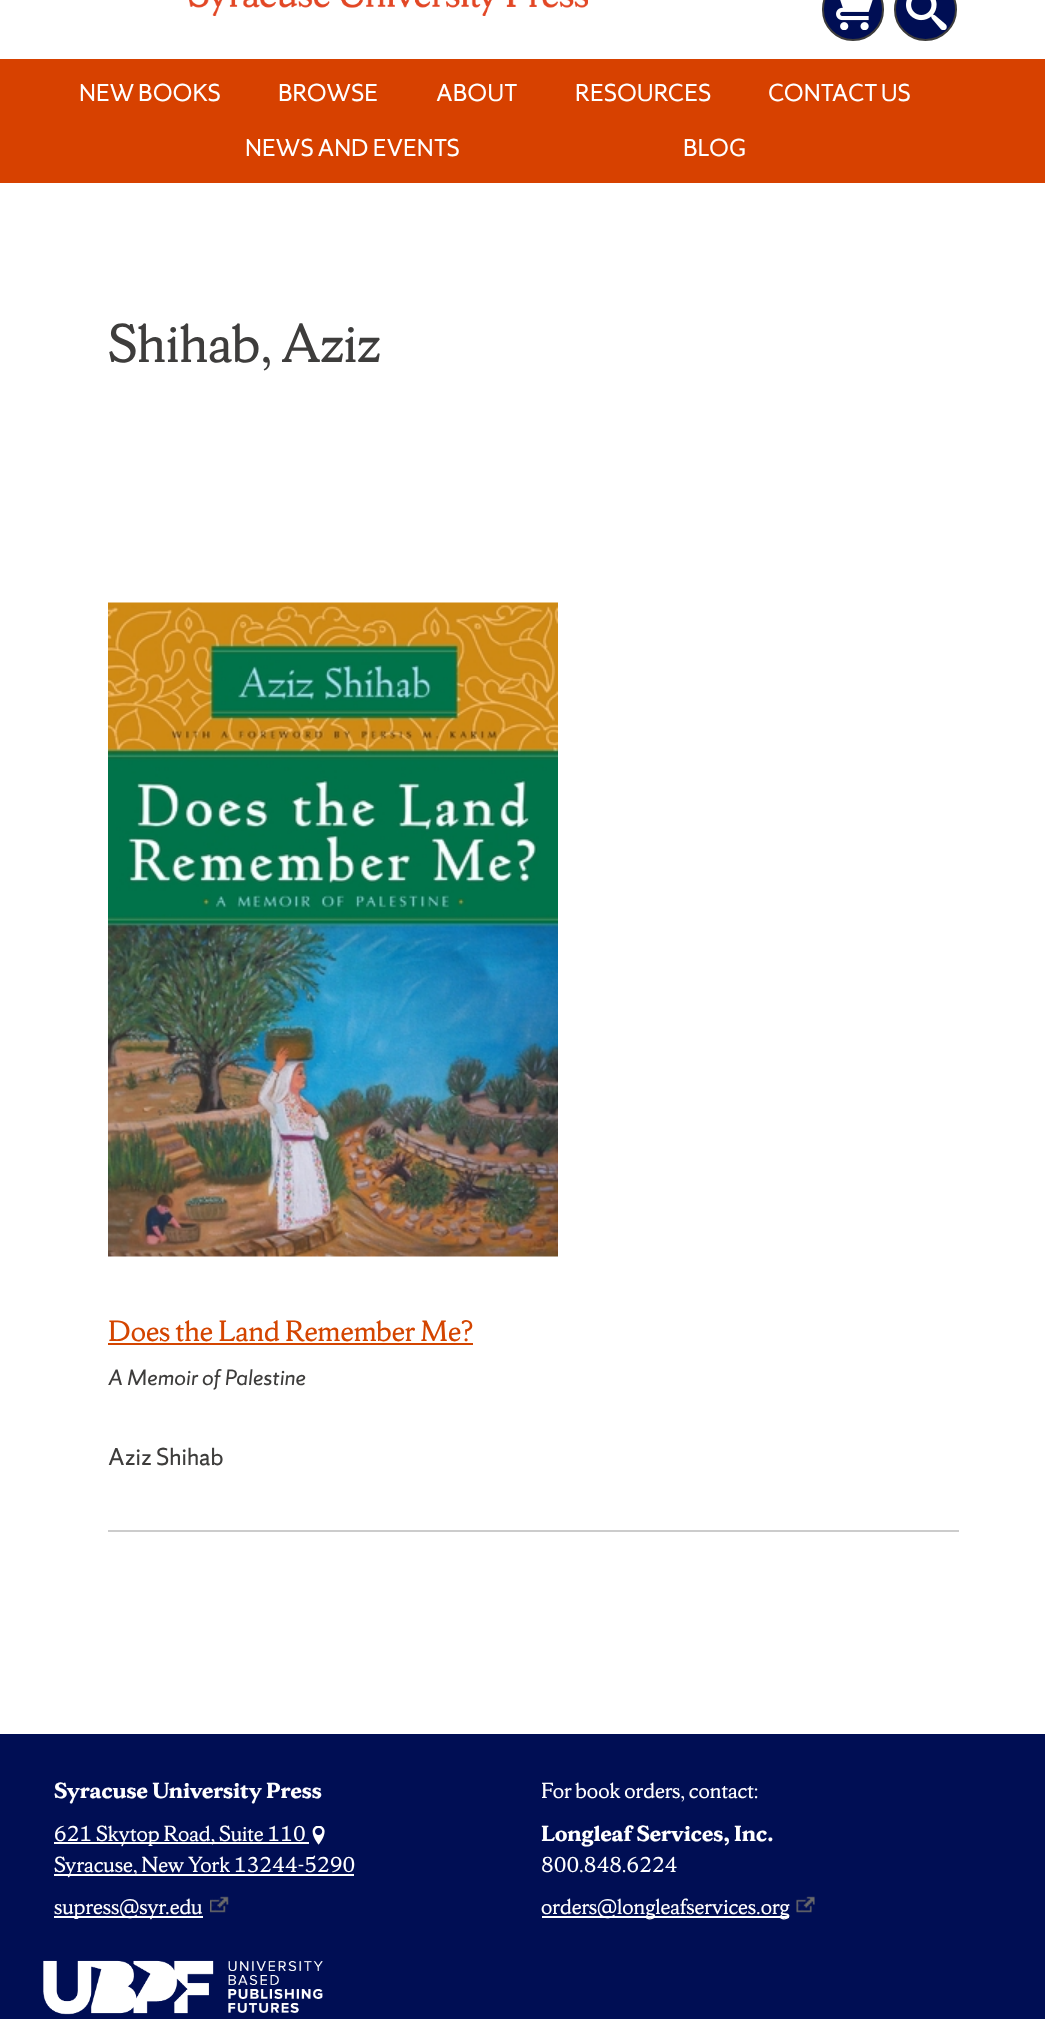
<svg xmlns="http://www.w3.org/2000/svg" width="1045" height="2019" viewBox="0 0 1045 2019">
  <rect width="100%" height="100%" fill="#ffffff"/>
  <image x="189" y="0" width="399" height="16" href="img1.png"/>
  <rect x="823" y="-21" width="60" height="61" rx="30" fill="#000e54" stroke="#3e3d3c" stroke-width="2"/>
  <image x="836" y="0" width="37" height="30" href="img2.png"/>
  <circle cx="925.5" cy="9.5" r="30.5" fill="#000e54" stroke="#3e3d3c" stroke-width="2"/>
  <image x="906" y="0" width="41" height="30" href="img3.png"/>
  <rect x="0" y="59" width="1045" height="124" fill="#d74100"/>
  <text x="79" y="101" font-family="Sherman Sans" font-size="21.5" fill="#ffffff">NEW BOOKS</text>
  <text x="278" y="101" font-family="Sherman Sans" font-size="21.5" fill="#ffffff">BROWSE</text>
  <text x="436" y="101" font-family="Sherman Sans" font-size="21.5" fill="#ffffff">ABOUT</text>
  <text x="575" y="101" font-family="Sherman Sans" font-size="21.5" fill="#ffffff">RESOURCES</text>
  <text x="768" y="101" font-family="Sherman Sans" font-size="21.5" fill="#ffffff">CONTACT US</text>
  <text x="245" y="156" font-family="Sherman Sans" font-size="21.5" fill="#ffffff">NEWS AND EVENTS</text>
  <text x="683" y="156" font-family="Sherman Sans" font-size="21.5" fill="#ffffff">BLOG</text>
  <text x="108" y="362" font-family="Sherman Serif" font-size="48" fill="#3e3d3c">Shihab, Aziz</text>
  <image x="108" y="602" width="450" height="655" href="img4.png"/>
  <text x="108" y="1341" font-family="Sherman Serif" font-size="25.9" fill="#d44500">Does the Land Remember Me?</text>
  <rect x="108" y="1343" width="365" height="2" fill="#d44500"/>
  <text x="108" y="1385" font-family="Sherman Sans" font-size="19.5" font-style="italic" fill="#3e3d3c">A Memoir of Palestine</text>
  <text x="108" y="1465" font-family="Sherman Sans" font-size="21.5" fill="#3e3d3c">Aziz Shihab</text>
  <rect x="108" y="1530" width="851" height="2" fill="#cccccc"/>
  <rect x="0" y="1734" width="1045" height="285" fill="#000e54"/>
  <text x="54" y="1798" font-family="Sherman Serif" font-size="19.25" font-weight="bold" fill="#ffffff">Syracuse University Press</text>
  <rect x="54" y="1842" width="255" height="2" fill="#ffffff"/>
  <text x="54" y="1841" font-family="Sherman Serif" font-size="19.25" fill="#ffffff">621 Skytop Road, Suite 110</text>
  <image x="312" y="1826" width="13" height="19" href="img5.png"/>
  <rect x="54" y="1874" width="300" height="2" fill="#ffffff"/>
  <text x="54" y="1872" font-family="Sherman Serif" font-size="19.25" fill="#ffffff">Syracuse, New York 13244-5290</text>
  <rect x="54" y="1916" width="149" height="2" fill="#ffffff"/>
  <text x="54" y="1914" font-family="Sherman Serif" font-size="19.25" fill="#ffffff">supress@syr.edu</text>
  <image x="210" y="1896" width="19" height="17" href="img6.png"/>
  <text x="541" y="1798" font-family="Sherman Serif" font-size="19.25" fill="#ffffff">For book orders, contact:</text>
  <text x="541" y="1841" font-family="Sherman Serif" font-size="19.25" font-weight="bold" fill="#ffffff">Longleaf Services, Inc.</text>
  <text x="541" y="1872" font-family="Sherman Serif" font-size="19.25" fill="#ffffff">800.848.6224</text>
  <rect x="542" y="1916" width="247" height="2" fill="#ffffff"/>
  <text x="541" y="1914" font-family="Sherman Serif" font-size="19.25" fill="#ffffff">orders@longleafservices.org</text>
  <image x="796" y="1896" width="19" height="17" href="img7.png"/>
  <image x="43" y="1960" width="280" height="55" href="img8.png"/>
</svg>
